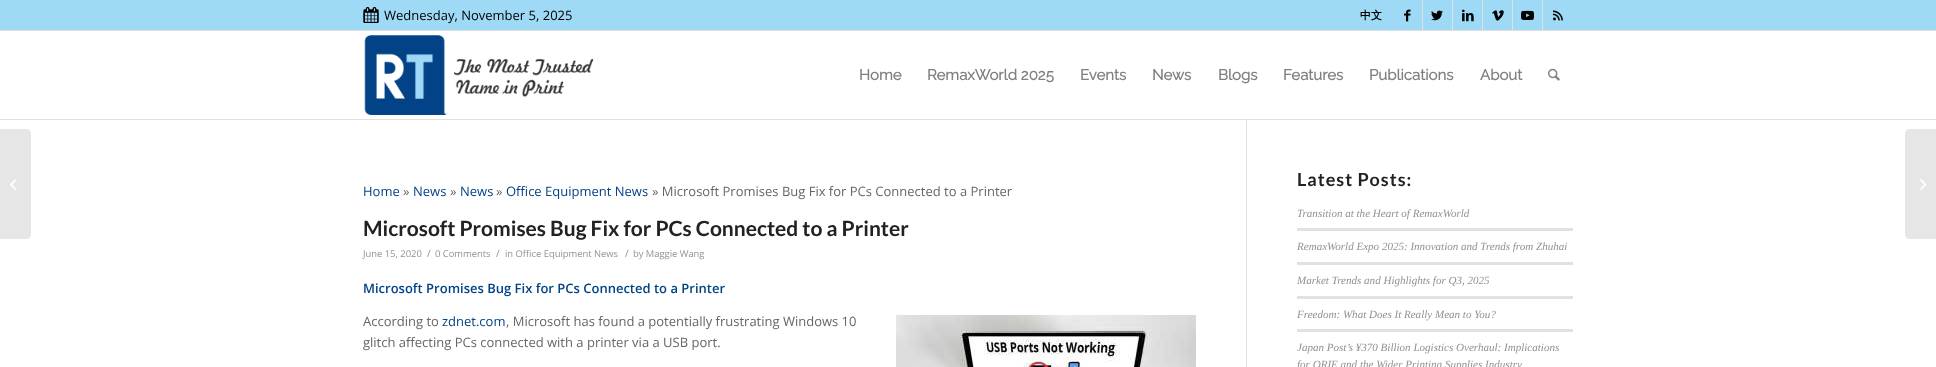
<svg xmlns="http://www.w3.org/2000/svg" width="1936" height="367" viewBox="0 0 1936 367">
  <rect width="100%" height="100%" fill="#ffffff"/>
  <rect x="0" y="0" width="1936" height="30" fill="#9ed9f6"/>
  <rect x="0" y="30" width="1936" height="1" fill="#e1e1e1"/>
  <image x="363" y="7" width="16" height="16" href="img1.png"/>
  <text x="384" y="20" font-family="Open Sans" font-size="13" fill="#000000">Wednesday, November 5, 2025</text>
  <text x="1360" y="19" font-family="WenQuanYi Zen Hei" font-size="11" font-weight="bold" fill="#000000">中文</text>
  <rect x="1422" y="0" width="1" height="30" fill="#e1e1e1"/>
  <image x="1404" y="9" width="7" height="13" href="img2.png"/>
  <rect x="1452" y="0" width="1" height="30" fill="#e1e1e1"/>
  <image x="1431" y="10" width="12" height="11" href="img3.png"/>
  <rect x="1482" y="0" width="1" height="30" fill="#e1e1e1"/>
  <image x="1462" y="9" width="12" height="13" href="img4.png"/>
  <rect x="1512" y="0" width="1" height="30" fill="#e1e1e1"/>
  <image x="1492" y="10" width="12" height="11" href="img5.png"/>
  <rect x="1542" y="0" width="1" height="30" fill="#e1e1e1"/>
  <image x="1521" y="10" width="13" height="10" href="img6.png"/>
  <image x="1553" y="10" width="10" height="11" href="img7.png"/>
  <rect x="0" y="119" width="1936" height="1" fill="#e1e1e1"/>
  <image x="364" y="35" width="230" height="80" href="img8.png"/>
  <text x="859" y="80" font-family="Raleway" font-size="15" font-weight="bold" fill="#808080">Home</text>
  <text x="927" y="80" font-family="Raleway" font-size="15" font-weight="bold" fill="#808080">RemaxWorld 2025</text>
  <text x="1080" y="80" font-family="Raleway" font-size="15" font-weight="bold" fill="#808080">Events</text>
  <text x="1152" y="80" font-family="Raleway" font-size="15" font-weight="bold" fill="#808080">News</text>
  <text x="1218" y="80" font-family="Raleway" font-size="15" font-weight="bold" fill="#808080">Blogs</text>
  <text x="1283" y="80" font-family="Raleway" font-size="15" font-weight="bold" fill="#808080">Features</text>
  <text x="1369" y="80" font-family="Raleway" font-size="15" font-weight="bold" fill="#808080">Publications</text>
  <text x="1480" y="80" font-family="Raleway" font-size="15" font-weight="bold" fill="#808080">About</text>
  <image x="1548" y="68" width="12" height="13" href="img9.png"/>
  <path d="M0 129H27C29 129 31 131 31 133V235C31 237 29 239 27 239H0Z" fill="#e6e6e6"/>
  <image x="10" y="179" width="7" height="11" href="img10.png"/>
  <rect x="1246" y="120" width="1" height="247" fill="#e1e1e1"/>
  <text x="363" y="196" font-family="Open Sans" font-size="13" fill="#024287">Home</text>
  <text x="403" y="196" font-family="Open Sans" font-size="13" fill="#666666">»</text>
  <text x="413" y="196" font-family="Open Sans" font-size="13" fill="#024287">News</text>
  <text x="450" y="196" font-family="Open Sans" font-size="13" fill="#666666">»</text>
  <text x="460" y="196" font-family="Open Sans" font-size="13" fill="#024287">News</text>
  <text x="496" y="196" font-family="Open Sans" font-size="13" fill="#666666">»</text>
  <text x="506" y="196" font-family="Open Sans" font-size="13" fill="#024287">Office Equipment News</text>
  <text x="652" y="196" font-family="Open Sans" font-size="13" fill="#666666">» Microsoft Promises Bug Fix for PCs Connected to a Printer</text>
  <text x="363" y="236" font-family="Lato" font-size="21" font-weight="bold" fill="#222222">Microsoft Promises Bug Fix for PCs Connected to a Printer</text>
  <text x="363" y="257" font-family="Open Sans" font-size="9.4" fill="#919191">June 15, 2020</text>
  <text x="427" y="257" font-family="Open Sans" font-size="10" fill="#919191">/</text>
  <text x="435" y="257" font-family="Open Sans" font-size="9.4" fill="#919191">0 Comments</text>
  <text x="496" y="257" font-family="Open Sans" font-size="10" fill="#919191">/</text>
  <text x="505" y="257" font-family="Open Sans" font-size="9.4" fill="#919191">in Office Equipment News</text>
  <text x="625" y="257" font-family="Open Sans" font-size="10" fill="#919191">/</text>
  <text x="633" y="257" font-family="Open Sans" font-size="9.4" fill="#919191">by Maggie Wang</text>
  <text x="363" y="293" font-family="Open Sans" font-size="13" font-weight="600" fill="#024287">Microsoft Promises Bug Fix for PCs Connected to a Printer</text>
  <text x="363" y="326" font-family="Open Sans" font-size="13" fill="#666666">According to</text>
  <text x="442" y="326" font-family="Open Sans" font-size="13" fill="#024287">zdnet.com</text>
  <text x="506" y="326" font-family="Open Sans" font-size="13" fill="#666666">, Microsoft has found a potentially frustrating Windows 10</text>
  <image x="896" y="315" width="300" height="52" href="img11.png"/>
  <text x="363" y="347" font-family="Open Sans" font-size="13" fill="#666666">glitch affecting PCs connected with a printer via a USB port.</text>
  <text x="1297" y="186" font-family="Lato" font-size="18" font-weight="bold" letter-spacing="1" fill="#222222">Latest Posts:</text>
  <text x="1297" y="217" font-family="Liberation Serif" font-size="11.05" font-style="italic" fill="#919191">Transition at the Heart of RemaxWorld</text>
  <rect x="1297" y="228" width="276" height="3" fill="#e1e1e1"/>
  <text x="1297" y="250" font-family="Liberation Serif" font-size="11.05" font-style="italic" fill="#919191">RemaxWorld Expo 2025: Innovation and Trends from Zhuhai</text>
  <rect x="1297" y="262" width="276" height="3" fill="#e1e1e1"/>
  <text x="1297" y="284" font-family="Liberation Serif" font-size="11.05" font-style="italic" fill="#919191">Market Trends and Highlights for Q3, 2025</text>
  <rect x="1297" y="296" width="276" height="3" fill="#e1e1e1"/>
  <text x="1297" y="318" font-family="Liberation Serif" font-size="11.05" font-style="italic" fill="#919191">Freedom: What Does It Really Mean to You?</text>
  <rect x="1297" y="329" width="276" height="3" fill="#e1e1e1"/>
  <text x="1297" y="351" font-family="Liberation Serif" font-size="11.05" font-style="italic" fill="#919191">Japan Post’s ¥370 Billion Logistics Overhaul: Implications</text>
  <text x="1297" y="368" font-family="Liberation Serif" font-size="11.05" font-style="italic" fill="#919191">for QRIE and the Wider Printing Supplies Industry</text>
  <path d="M1909 129H1936V239H1909C1907 239 1905 237 1905 235V133C1905 131 1907 129 1909 129Z" fill="#e6e6e6"/>
  <image x="1920" y="179" width="7" height="11" href="img12.png"/>
</svg>
